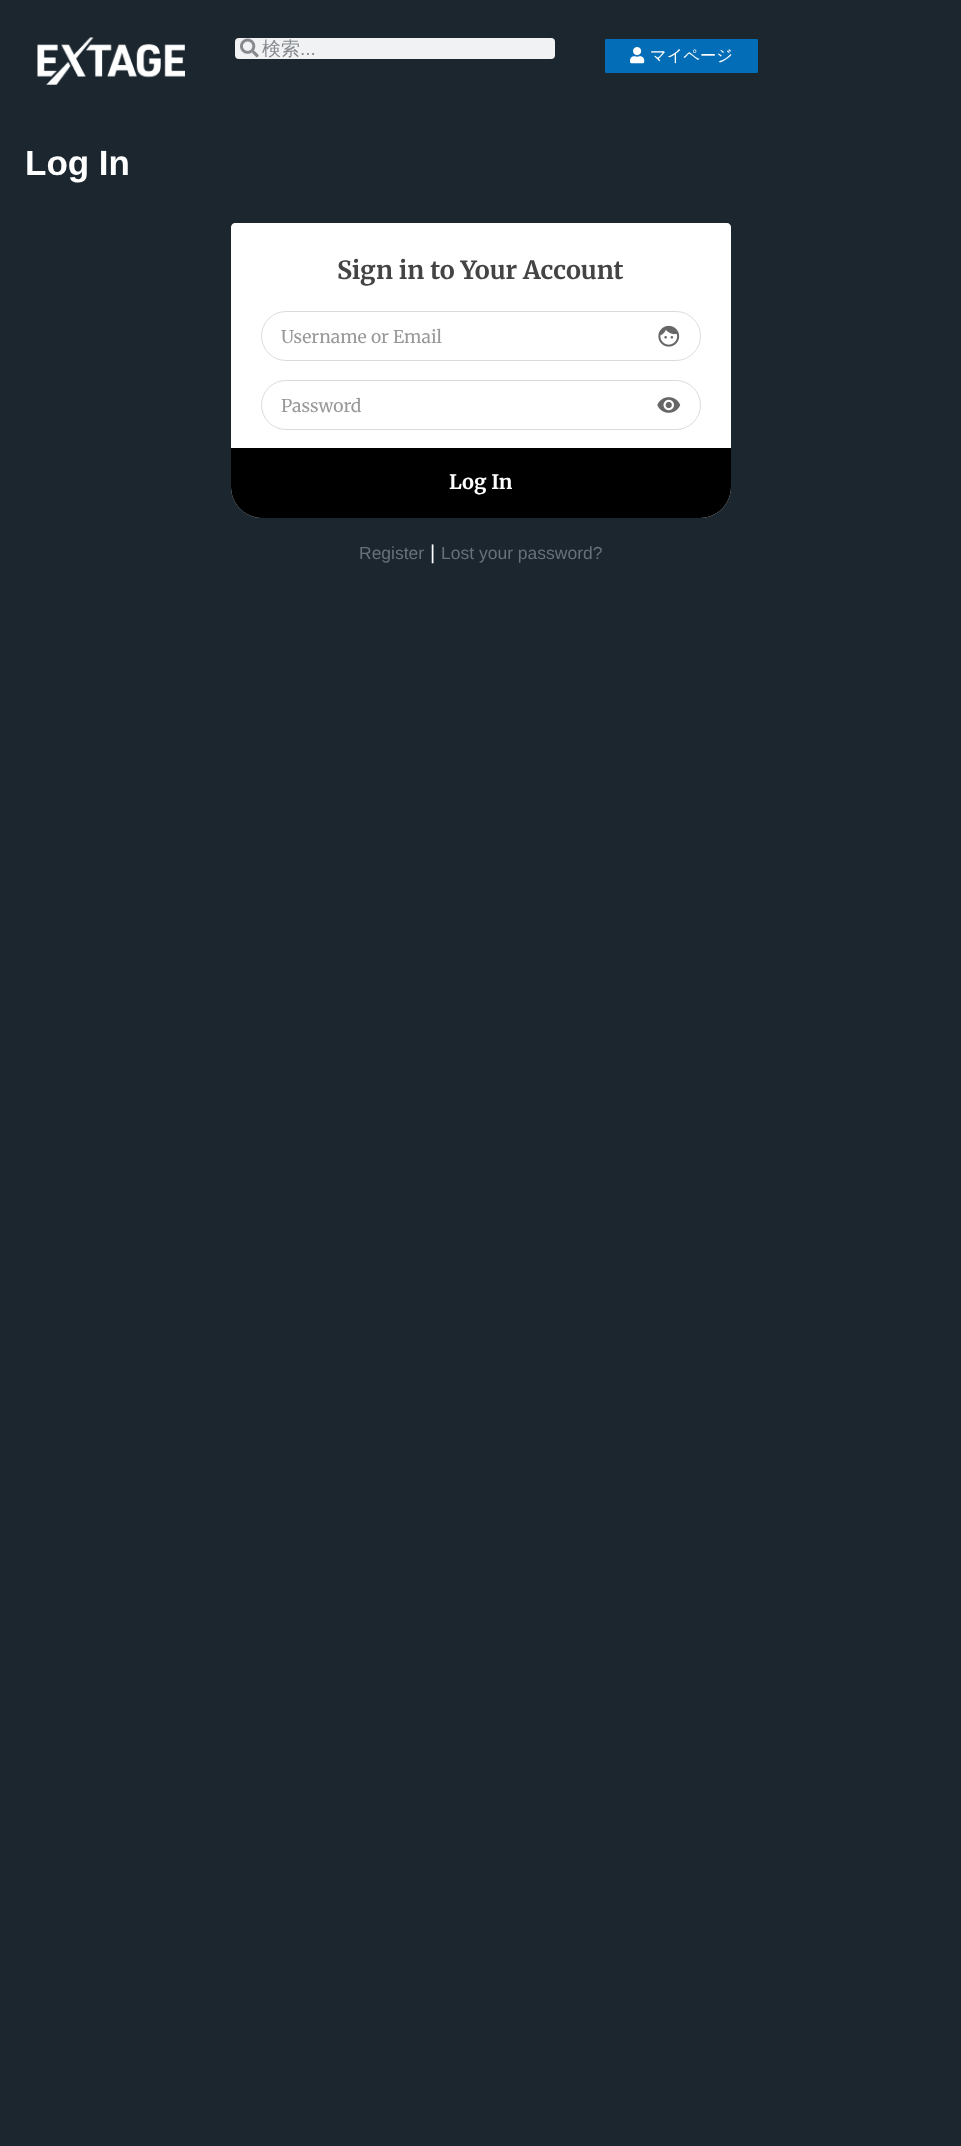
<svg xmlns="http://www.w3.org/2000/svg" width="961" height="2146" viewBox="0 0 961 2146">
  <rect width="100%" height="100%" fill="#1b262f"/>
  <image x="37" y="37" width="148" height="48" href="img1.png"/>
  <rect x="235" y="38" width="320" height="21" rx="4" fill="#f1f2f3"/>
  <image x="240" y="38" width="19" height="20" href="img2.png"/>
  <text x="262" y="55" font-family="WenQuanYi Zen Hei" font-size="19" font-weight="500" fill="#868a8e">検索</text>
  <text x="300" y="55" font-family="Liberation Sans" font-size="19" fill="#868a8e">...</text>
  <rect x="605" y="39" width="153" height="34" rx="1" fill="#036eb7"/>
  <image x="630" y="47" width="15" height="17" href="img3.png"/>
  <text x="650" y="61" font-family="WenQuanYi Zen Hei" font-size="16.25" font-weight="500" fill="#ffffff">マイページ</text>
  <text x="25" y="175" font-family="Liberation Sans" font-size="35" font-weight="bold" fill="#ffffff">Log In</text>
  <path d="M235 223H727C729 223 731 225 731 227V487C731 504 717 518 700 518H262C245 518 231 504 231 487V227C231 225 233 223 235 223Z" fill="#ffffff"/>
  <text x="337" y="279" font-family="Merriweather" font-size="25" font-weight="bold" fill="#444444">Sign in to Your Account</text>
  <rect x="261.5" y="311.5" width="439" height="49" rx="24.5" fill="none" stroke="#dbdbdb"/>
  <text x="281" y="343" font-family="Merriweather" font-size="17.5" fill="#999999">Username or Email</text>
  <image x="658" y="325" width="22" height="22" href="img4.png"/>
  <rect x="261.5" y="380.5" width="439" height="49" rx="24.5" fill="none" stroke="#dbdbdb"/>
  <text x="281" y="412" font-family="Merriweather" font-size="17.5" fill="#999999">Password</text>
  <image x="657" y="397" width="24" height="16" href="img5.png"/>
  <path d="M231 448H731V487C731 504 717 518 700 518H262C245 518 231 504 231 487Z" fill="#000000"/>
  <text x="449" y="489" font-family="Merriweather" font-size="20" font-weight="bold" fill="#ffffff">Log In</text>
  <text x="359" y="559" font-family="Liberation Sans" font-size="17.5" fill="#69717a">Register</text>
  <text x="430" y="559" font-family="Liberation Sans" font-size="20" fill="#ffffff">|</text>
  <text x="441" y="559" font-family="Liberation Sans" font-size="17.5" fill="#69717a">Lost your password?</text>
</svg>
